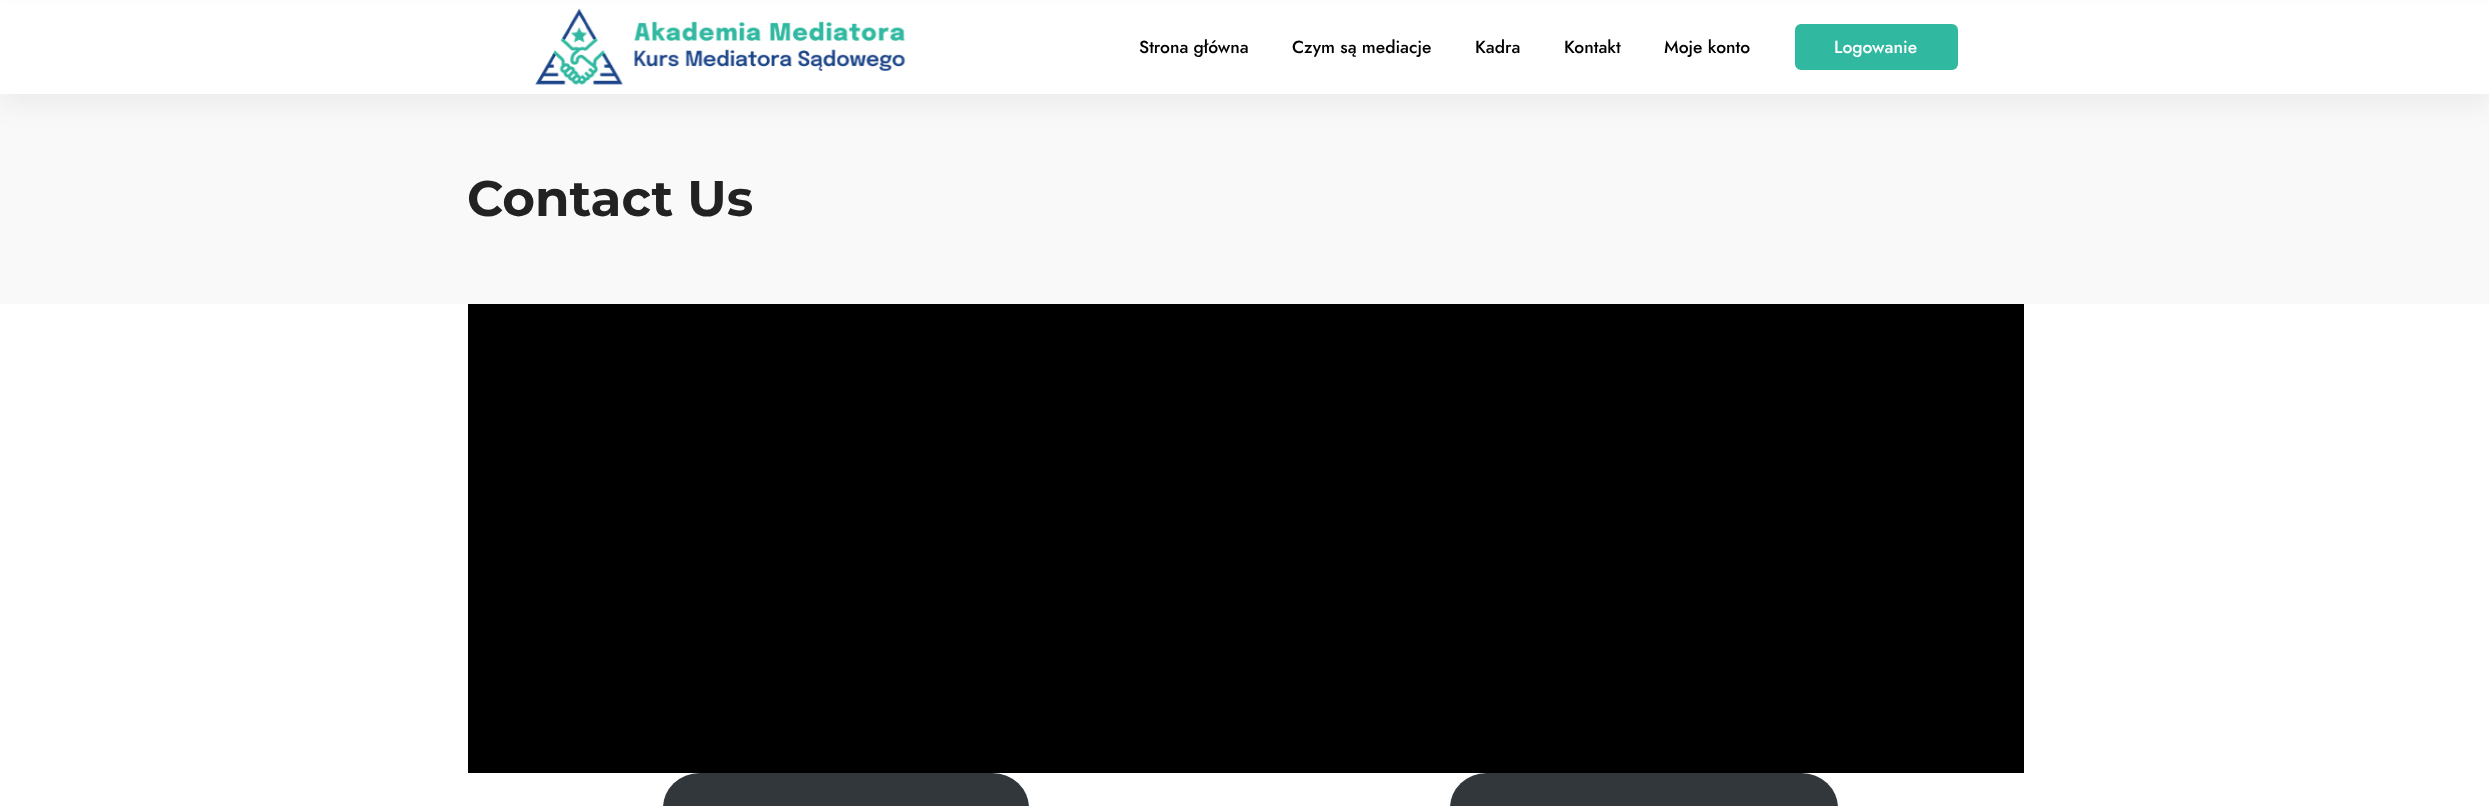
<svg xmlns="http://www.w3.org/2000/svg" width="2489" height="806" viewBox="0 0 2489 806">
  <defs>
    <filter id="blur1" x="-50%" y="-200%" width="200%" height="500%"><feGaussianBlur stdDeviation="12.5"/></filter>
  </defs>
  <rect width="100%" height="100%" fill="#ffffff"/>
  <rect x="0" y="94" width="2489" height="210" fill="#f9f9f9"/>
  <rect x="0" y="13" width="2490" height="93" fill="#000000" fill-opacity="0.05" filter="url(#blur1)"/>
  <rect x="0" y="3" width="2489" height="91" fill="#ffffff"/>
  <image x="535" y="8" width="371" height="77" href="img1.png"/>
  <text x="1139" y="53" font-family="Jost" font-size="17.5" font-weight="500" fill="#000000">Strona główna</text>
  <text x="1292" y="53" font-family="Jost" font-size="17.5" font-weight="500" fill="#000000">Czym są mediacje</text>
  <text x="1475" y="53" font-family="Jost" font-size="17.5" font-weight="500" fill="#000000">Kadra</text>
  <text x="1564" y="53" font-family="Jost" font-size="17.5" font-weight="500" fill="#000000">Kontakt</text>
  <text x="1664" y="53" font-family="Jost" font-size="17.5" font-weight="500" fill="#000000">Moje konto</text>
  <rect x="1796.5" y="25.5" width="160" height="43" rx="4.5" fill="#30b8a0" stroke="#30b8a0" stroke-width="3"/>
  <text x="1834" y="53" font-family="Jost" font-size="17.5" font-weight="500" fill="#ffffff">Logowanie</text>
  <text x="467" y="216" font-family="Montserrat" font-size="50" font-weight="100" fill="#222222">Contact Us</text>
  <rect x="468" y="304" width="1556" height="469" fill="#000000"/>
  <rect x="663" y="773" width="366" height="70" rx="36.5" fill="#32373c"/>
  <rect x="1450" y="773" width="388" height="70" rx="36.5" fill="#32373c"/>
</svg>
